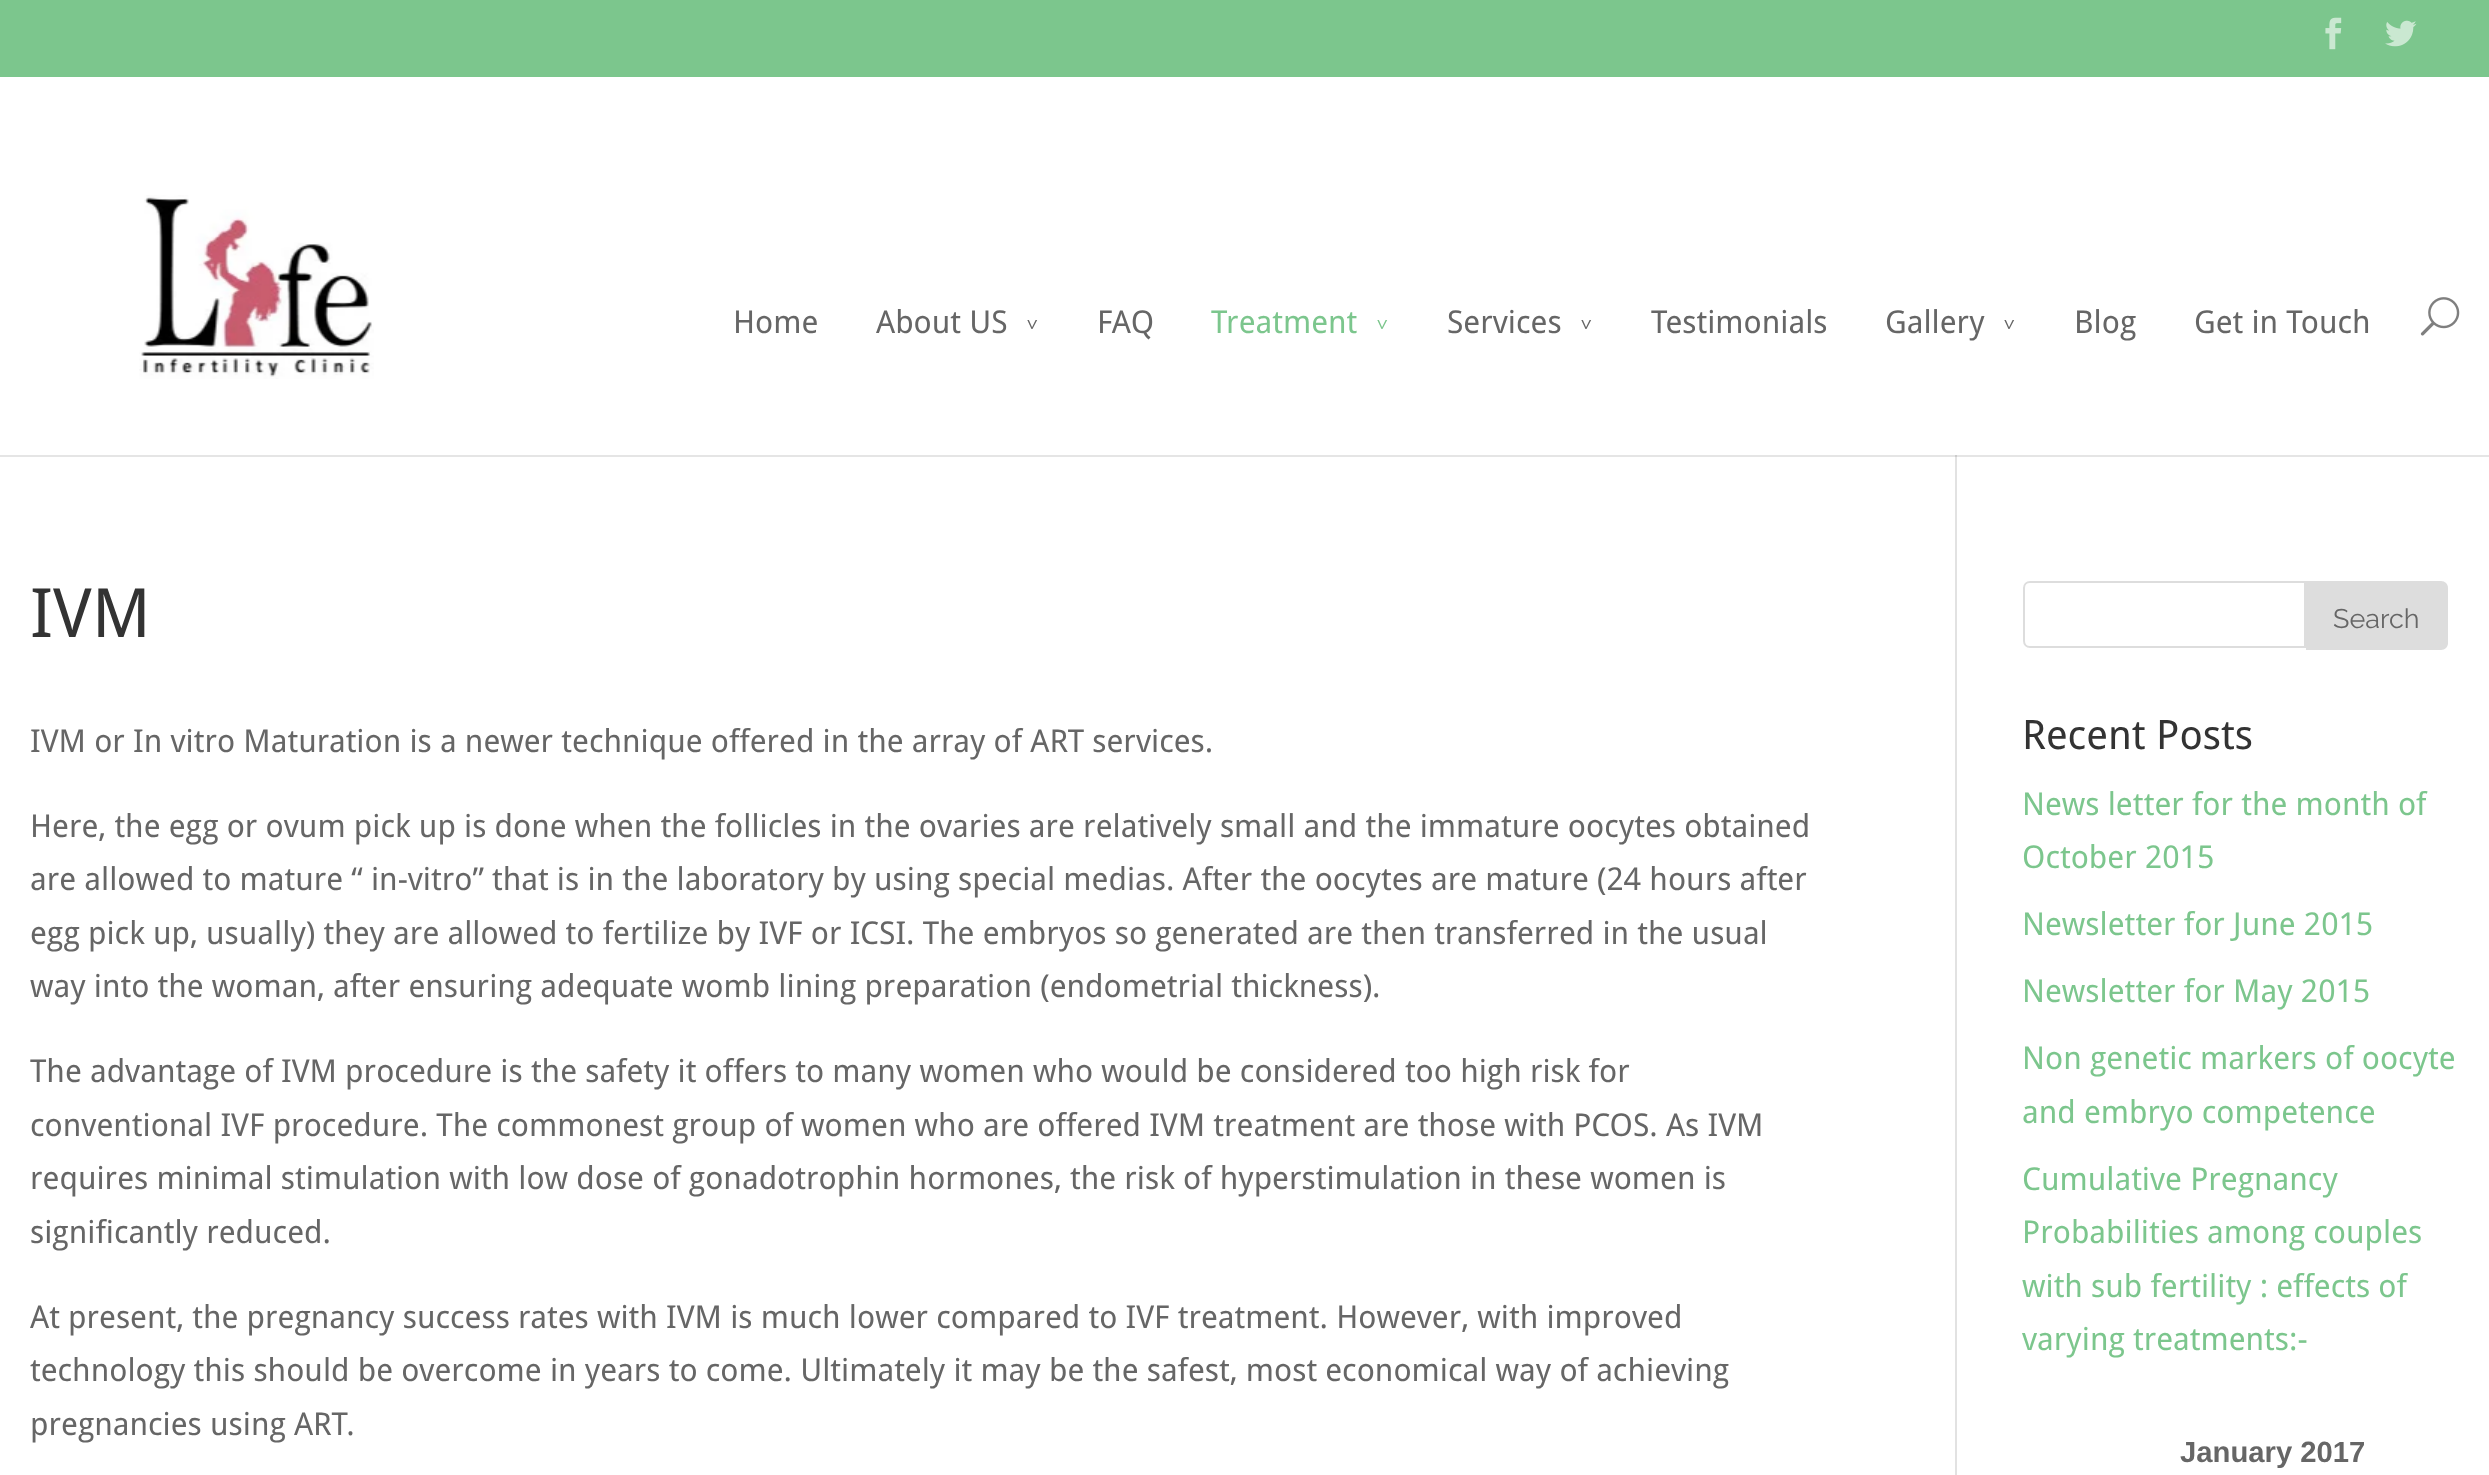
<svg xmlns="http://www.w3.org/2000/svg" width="2489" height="1475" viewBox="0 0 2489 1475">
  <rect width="100%" height="100%" fill="#ffffff"/>
  <rect x="0" y="0" width="2489" height="77" fill="#7cc68d"/>
  <image x="2325" y="17" width="17" height="33" href="img1.png"/>
  <image x="2385" y="20" width="32" height="27" href="img2.png"/>
  <rect x="1955" y="450" width="2" height="1025" fill="#e2e2e2"/>
  <path d="M0 454V457H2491V79V454Z" fill="#000000" fill-opacity="0.1"/>
  <rect x="0" y="450" width="2489" height="5" fill="#ffffff"/>
  <image x="139" y="195" width="235" height="184" href="img3.png"/>
  <text x="733" y="333" font-family="Droid Sans" font-size="31.5" fill="#666666">Home</text>
  <text x="876" y="333" font-family="Droid Sans" font-size="31.5" fill="#666666">About US</text>
  <text x="1025" y="319" transform="rotate(90 1025 319)" font-family="Droid Sans" font-size="20" fill="#666666">&gt;</text>
  <text x="1097" y="333" font-family="Droid Sans" font-size="31.5" fill="#666666">FAQ</text>
  <text x="1211" y="333" font-family="Droid Sans" font-size="31.5" fill="#7cc68d">Treatment</text>
  <text x="1375" y="319" transform="rotate(90 1375 319)" font-family="Droid Sans" font-size="20" fill="#7cc68d">&gt;</text>
  <text x="1447" y="333" font-family="Droid Sans" font-size="31.5" fill="#666666">Services</text>
  <text x="1579" y="319" transform="rotate(90 1579 319)" font-family="Droid Sans" font-size="20" fill="#666666">&gt;</text>
  <text x="1651" y="333" font-family="Droid Sans" font-size="31.5" fill="#666666">Testimonials</text>
  <text x="1885" y="333" font-family="Droid Sans" font-size="31.5" fill="#666666">Gallery</text>
  <text x="2002" y="319" transform="rotate(90 2002 319)" font-family="Droid Sans" font-size="20" fill="#666666">&gt;</text>
  <text x="2074" y="333" font-family="Droid Sans" font-size="31.5" fill="#666666">Blog</text>
  <text x="2194" y="333" font-family="Droid Sans" font-size="31.5" fill="#666666">Get in Touch</text>
  <image x="2420" y="297" width="40" height="39" href="img4.png"/>
  <text x="30" y="637" font-family="Droid Sans" font-size="68" fill="#333333">IVM</text>
  <text x="30" y="752" font-family="Droid Sans" font-size="31.5" fill="#666666">IVM or In vitro Maturation is a newer technique offered in the array of ART services.</text>
  <text x="30" y="837" font-family="Droid Sans" font-size="31.5" fill="#666666">Here, the egg or ovum pick up is done when the follicles in the ovaries are relatively small and the immature oocytes obtained</text>
  <text x="30" y="890" font-family="Droid Sans" font-size="31.5" fill="#666666">are allowed to mature “ in-vitro” that is in the laboratory by using special medias. After the oocytes are mature (24 hours after</text>
  <text x="30" y="944" font-family="Droid Sans" font-size="31.5" fill="#666666">egg pick up, usually) they are allowed to fertilize by IVF or ICSI. The embryos so generated are then transferred in the usual</text>
  <text x="30" y="997" font-family="Droid Sans" font-size="31.5" fill="#666666">way into the woman, after ensuring adequate womb lining preparation (endometrial thickness).</text>
  <text x="30" y="1082" font-family="Droid Sans" font-size="31.5" fill="#666666">The advantage of IVM procedure is the safety it offers to many women who would be considered too high risk for</text>
  <text x="30" y="1136" font-family="Droid Sans" font-size="31.5" fill="#666666">conventional IVF procedure. The commonest group of women who are offered IVM treatment are those with PCOS. As IVM</text>
  <text x="30" y="1189" font-family="Droid Sans" font-size="31.5" fill="#666666">requires minimal stimulation with low dose of gonadotrophin hormones, the risk of hyperstimulation in these women is</text>
  <text x="30" y="1243" font-family="Droid Sans" font-size="31.5" fill="#666666">significantly reduced.</text>
  <text x="30" y="1328" font-family="Droid Sans" font-size="31.5" fill="#666666">At present, the pregnancy success rates with IVM is much lower compared to IVF treatment. However, with improved</text>
  <text x="30" y="1381" font-family="Droid Sans" font-size="31.5" fill="#666666">technology this should be overcome in years to come. Ultimately it may be the safest, most economical way of achieving</text>
  <text x="30" y="1435" font-family="Droid Sans" font-size="31.5" fill="#666666">pregnancies using ART.</text>
  <path d="M2030 582H2305V647H2030C2026.5 647 2024 644.5 2024 641V588C2024 584.5 2026.5 582 2030 582Z" fill="none" stroke="#dddddd" stroke-width="2"/>
  <path d="M2306 581H2441C2445 581 2448 584 2448 588V643C2448 647 2445 650 2441 650H2306Z" fill="#dddddd"/>
  <text x="2333" y="628" font-family="Raleway" font-size="27" fill="#666666">Search</text>
  <text x="2022" y="749" font-family="Droid Sans" font-size="40.5" fill="#333333">Recent Posts</text>
  <text x="2022" y="815" font-family="Droid Sans" font-size="31.5" fill="#7cc68d">News letter for the month of</text>
  <text x="2022" y="868" font-family="Droid Sans" font-size="31.5" fill="#7cc68d">October 2015</text>
  <text x="2022" y="935" font-family="Droid Sans" font-size="31.5" fill="#7cc68d">Newsletter for June 2015</text>
  <text x="2022" y="1002" font-family="Droid Sans" font-size="31.5" fill="#7cc68d">Newsletter for May 2015</text>
  <text x="2022" y="1069" font-family="Droid Sans" font-size="31.5" fill="#7cc68d">Non genetic markers of oocyte</text>
  <text x="2022" y="1123" font-family="Droid Sans" font-size="31.5" fill="#7cc68d">and embryo competence</text>
  <text x="2022" y="1190" font-family="Droid Sans" font-size="31.5" fill="#7cc68d">Cumulative Pregnancy</text>
  <text x="2022" y="1243" font-family="Droid Sans" font-size="31.5" fill="#7cc68d">Probabilities among couples</text>
  <text x="2022" y="1297" font-family="Droid Sans" font-size="31.5" fill="#7cc68d">with sub fertility : effects of</text>
  <text x="2022" y="1350" font-family="Droid Sans" font-size="31.5" fill="#7cc68d">varying treatments:-</text>
  <text x="2180" y="1462" font-family="Liberation Sans" font-size="29.25" font-weight="bold" fill="#666666">January 2017</text>
</svg>
